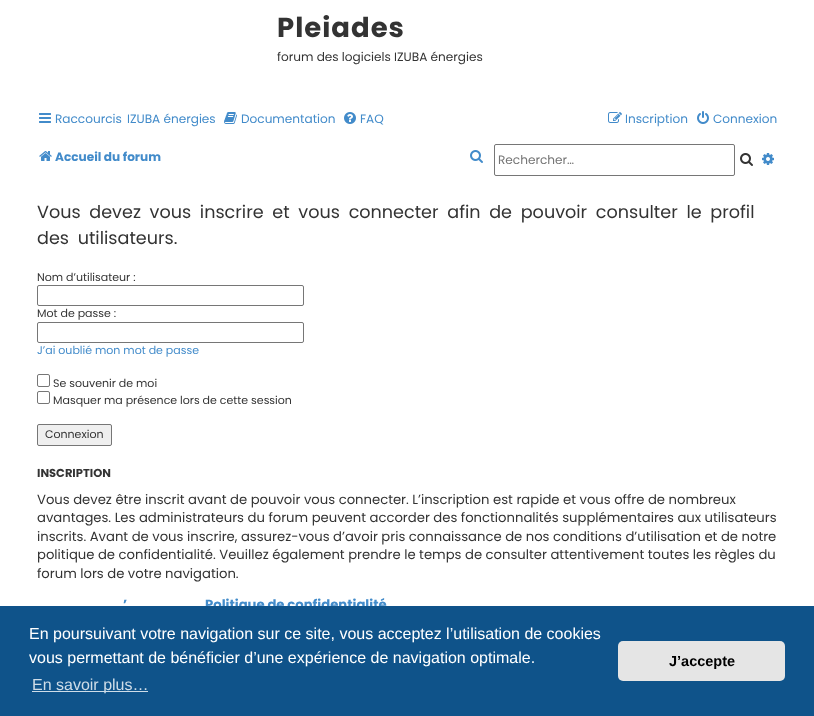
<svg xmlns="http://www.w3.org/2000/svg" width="814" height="716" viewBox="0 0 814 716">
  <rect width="100%" height="100%" fill="#ffffff"/>
  <text x="277" y="37" font-family="Poppins" font-size="27.5" font-weight="bold" letter-spacing="1" fill="#333333">Pleiades</text>
  <text x="277" y="61" font-family="Poppins" font-size="12.1" fill="#333333">forum des logiciels IZUBA énergies</text>
  <image x="39" y="113" width="12" height="10" href="img1.png"/>
  <text x="55" y="123" font-family="Poppins" font-size="12.1" fill="#428bca">Raccourcis</text>
  <text x="127" y="123" font-family="Poppins" font-size="12.1" fill="#428bca">IZUBA énergies</text>
  <image x="224" y="112" width="13" height="12" href="img2.png"/>
  <text x="241" y="123" font-family="Poppins" font-size="12.1" fill="#428bca">Documentation</text>
  <image x="344" y="112" width="12" height="12" href="img3.png"/>
  <text x="360" y="123" font-family="Poppins" font-size="12.1" fill="#428bca">FAQ</text>
  <image x="608" y="112" width="14" height="11" href="img4.png"/>
  <text x="625" y="123" font-family="Poppins" font-size="12.1" fill="#428bca">Inscription</text>
  <image x="697" y="111" width="12" height="13" href="img5.png"/>
  <text x="713" y="123" font-family="Poppins" font-size="12.1" fill="#428bca">Connexion</text>
  <image x="39" y="151" width="13" height="10" href="img6.png"/>
  <text x="55" y="161" font-family="Poppins" font-size="12.1" font-weight="bold" fill="#428bca">Accueil du forum</text>
  <image x="470" y="150" width="13" height="13" href="img7.png"/>
  <rect x="494.5" y="144.5" width="240" height="31" rx="1.5" fill="none" stroke="#767676"/>
  <text x="498" y="164" font-family="Poppins" font-size="12.1" fill="#757575">Rechercher…</text>
  <image x="740" y="153" width="13" height="13" href="img8.png"/>
  <image x="762" y="153" width="12" height="12" href="img9.png"/>
  <text x="37" y="218" word-spacing="4" font-family="Poppins" font-size="17.6" fill="#333333">Vous devez vous inscrire et vous connecter afin de pouvoir consulter le profil</text>
  <text x="37" y="244" word-spacing="4" font-family="Poppins" font-size="17.6" fill="#333333">des utilisateurs.</text>
  <text x="37" y="281" font-family="Poppins" font-size="11" fill="#333333">Nom d’utilisateur :</text>
  <rect x="37.5" y="285.5" width="266" height="20" rx="1.5" fill="none" stroke="#767676"/>
  <text x="37" y="317" font-family="Poppins" font-size="11" fill="#333333">Mot de passe :</text>
  <rect x="37.5" y="322.5" width="266" height="20" rx="1.5" fill="none" stroke="#767676"/>
  <text x="37" y="354" font-family="Poppins" font-size="11" fill="#428bca">J’ai oublié mon mot de passe</text>
  <rect x="37.5" y="374.5" width="12" height="12" rx="1.5" fill="none" stroke="#767676"/>
  <text x="53" y="387" font-family="Poppins" font-size="11" fill="#333333">Se souvenir de moi</text>
  <rect x="37.5" y="391.5" width="12" height="12" rx="1.5" fill="none" stroke="#767676"/>
  <text x="53" y="404" font-family="Poppins" font-size="11" fill="#333333">Masquer ma présence lors de cette session</text>
  <rect x="37.5" y="424.5" width="74" height="21" rx="1.5" fill="#efefef" stroke="#767676"/>
  <text x="45" y="438" font-family="Poppins" font-size="11" fill="#333333">Connexion</text>
  <text x="37" y="477" font-family="Poppins" font-size="11.5" font-weight="bold" fill="#333333">INSCRIPTION</text>
  <text x="37" y="504" font-family="Poppins" font-size="13.2" fill="#333333">Vous devez être inscrit avant de pouvoir vous connecter. L’inscription est rapide et vous offre de nombreux</text>
  <text x="37" y="522" font-family="Poppins" font-size="13.2" fill="#333333">avantages. Les administrateurs du forum peuvent accorder des fonctionnalités supplémentaires aux utilisateurs</text>
  <text x="37" y="541" font-family="Poppins" font-size="13.2" fill="#333333">inscrits. Avant de vous inscrire, assurez-vous d’avoir pris connaissance de nos conditions d’utilisation et de notre</text>
  <text x="37" y="559" font-family="Poppins" font-size="13.2" fill="#333333">politique de confidentialité. Veuillez également prendre le temps de consulter attentivement toutes les règles du</text>
  <text x="37" y="578" font-family="Poppins" font-size="13.2" fill="#333333">forum lors de votre navigation.</text>
  <text x="123" y="609" font-family="Poppins" font-size="13.2" font-weight="bold" fill="#428bca">’</text>
  <text x="205" y="609" font-family="Poppins" font-size="13.2" font-weight="bold" fill="#428bca">Politique de confidentialité</text>
  <rect x="0" y="606" width="814" height="110" fill="#0f538a"/>
  <text x="29" y="639" font-family="Liberation Sans" font-size="16" fill="#ffffff">En poursuivant votre navigation sur ce site, vous acceptez l’utilisation de cookies</text>
  <text x="29" y="663" font-family="Liberation Sans" font-size="16" fill="#ffffff">vous permettant de bénéficier d’une expérience de navigation optimale.</text>
  <rect x="32" y="691" width="116" height="1" fill="#cfdde8"/>
  <text x="32" y="690" font-family="Liberation Sans" font-size="16" fill="#cfdde8">En savoir plus…</text>
  <rect x="618" y="641" width="167" height="40" rx="5" fill="#e5e5e5"/>
  <text x="669" y="666" font-family="Liberation Sans" font-size="14.5" font-weight="bold" fill="#000000">J’accepte</text>
</svg>
